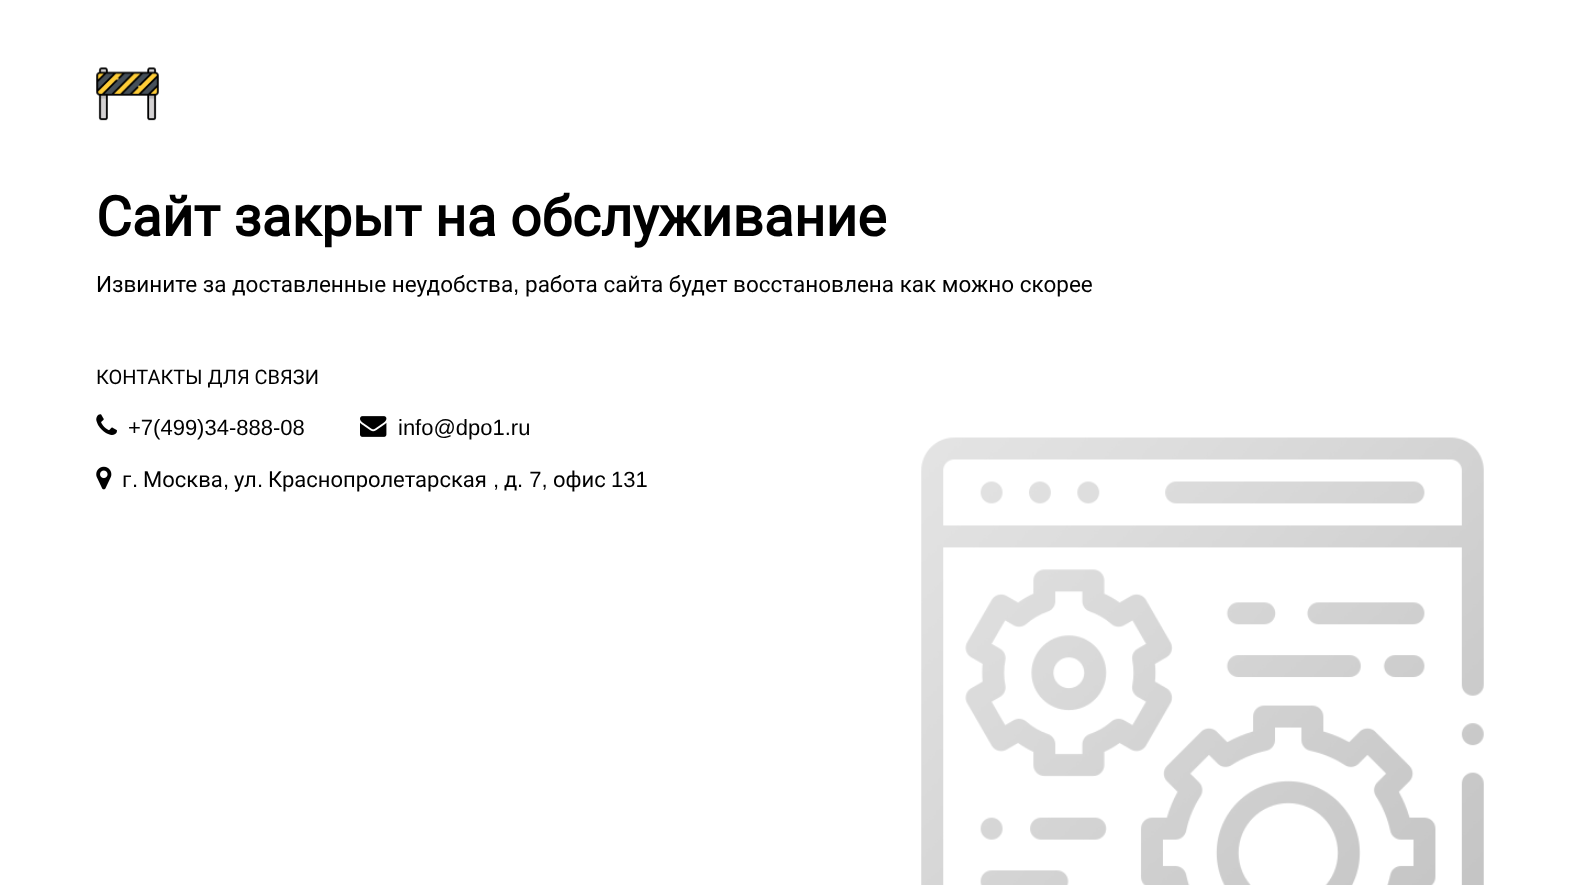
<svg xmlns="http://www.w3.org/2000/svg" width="1578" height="885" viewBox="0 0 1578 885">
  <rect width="100%" height="100%" fill="#ffffff"/>
  <image x="96" y="67" width="63" height="54" href="img1.png"/>
  <text x="96" y="236" font-family="Roboto" font-size="55" font-weight="bold" fill="#000000">Сайт закрыт на обслуживание</text>
  <text x="96" y="292" font-family="Roboto" font-size="22.5" fill="#000000">Извините за доставленные неудобства</text>
  <text x="513" y="292" font-family="Liberation Sans" font-size="22.5" fill="#000000">,</text>
  <text x="525" y="292" font-family="Roboto" font-size="22.5" fill="#000000">работа сайта будет восстановлена как можно скорее</text>
  <text x="96" y="384" font-family="Roboto" font-size="20" fill="#000000">КОНТАКТЫ ДЛЯ СВЯЗИ</text>
  <image x="96" y="414" width="21" height="21" href="img2.png"/>
  <text x="128" y="435" font-family="Liberation Sans" font-size="22" fill="#000000">+7(499)34-888-08</text>
  <image x="360" y="416" width="27" height="21" href="img3.png"/>
  <text x="398" y="435" font-family="Liberation Sans" font-size="22" fill="#000000">info@dpo1.ru</text>
  <image x="96" y="466" width="16" height="24" href="img4.png"/>
  <text x="122" y="487" font-family="Roboto" font-size="22" fill="#000000">г</text>
  <text x="132" y="487" font-family="Liberation Sans" font-size="22" fill="#000000">.</text>
  <text x="143" y="487" font-family="Roboto" font-size="22" fill="#000000">Москва</text>
  <text x="223" y="487" font-family="Liberation Sans" font-size="22" fill="#000000">,</text>
  <text x="234" y="487" font-family="Roboto" font-size="22" fill="#000000">ул</text>
  <text x="257" y="487" font-family="Liberation Sans" font-size="22" fill="#000000">.</text>
  <text x="268" y="487" font-family="Roboto" font-size="22" fill="#000000">Краснопролетарская</text>
  <text x="493" y="487" font-family="Liberation Sans" font-size="22" fill="#000000">,</text>
  <text x="504" y="487" font-family="Roboto" font-size="22" fill="#000000">д</text>
  <text x="517" y="487" font-family="Liberation Sans" font-size="22" fill="#000000">. 7,</text>
  <text x="553" y="487" font-family="Roboto" font-size="22" fill="#000000">офис</text>
  <text x="611" y="487" font-family="Liberation Sans" font-size="22" fill="#000000">131</text>
  <image x="921" y="437" width="563" height="448" href="img5.png"/>
</svg>
